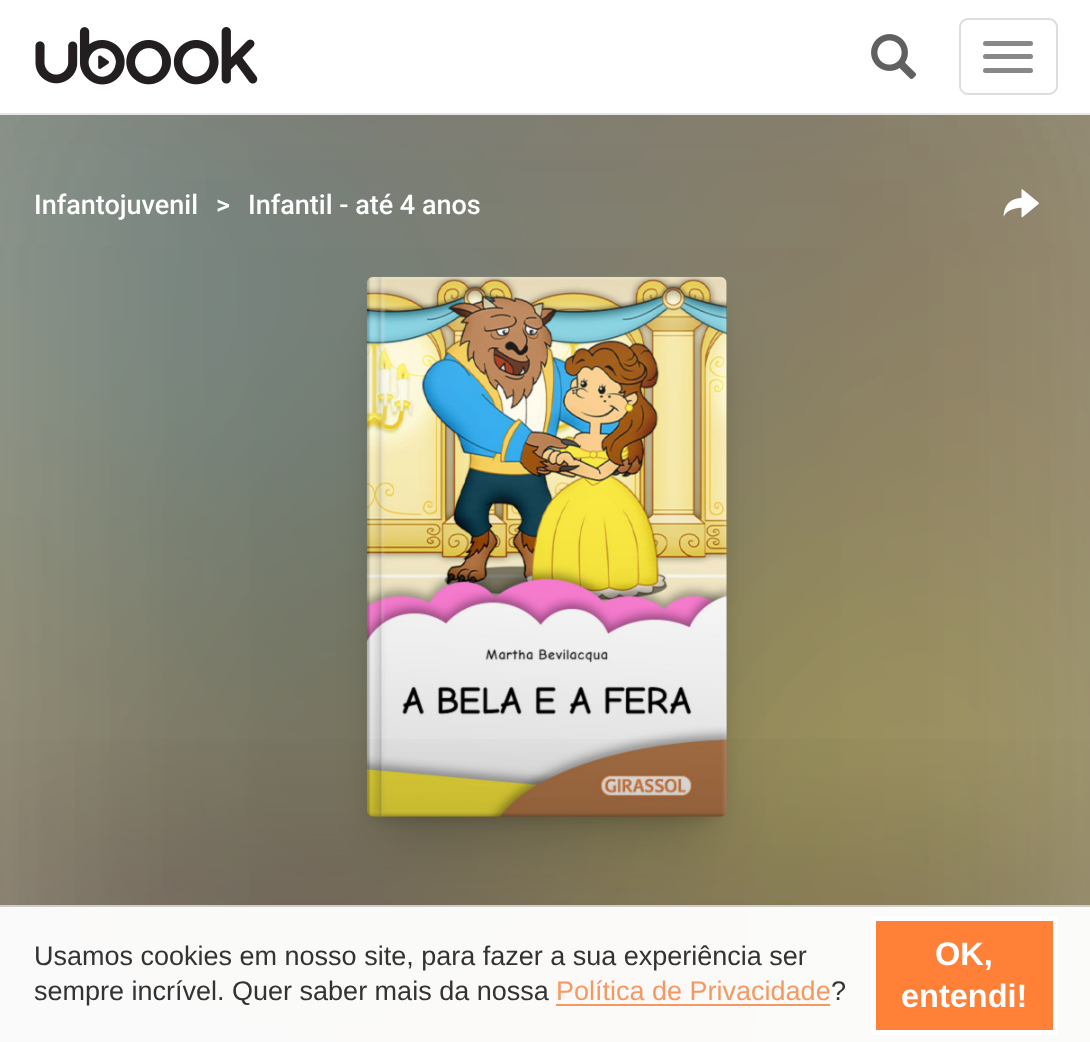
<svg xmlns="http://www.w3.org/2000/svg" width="1090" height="1042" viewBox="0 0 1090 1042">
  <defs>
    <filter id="blur1" x="-50%" y="-200%" width="200%" height="500%"><feGaussianBlur stdDeviation="9"/></filter>
    <filter id="blur2" x="-50%" y="-200%" width="200%" height="500%"><feGaussianBlur stdDeviation="27"/></filter>
    <clipPath id="clip1"><rect x="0" y="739" width="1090" height="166"/></clipPath>
    <filter id="blur3" x="-50%" y="-200%" width="200%" height="500%"><feGaussianBlur stdDeviation="95.5"/></filter>
  </defs>
  <rect width="100%" height="100%" fill="#ffffff"/>
  <rect x="0" y="115" width="1090" height="927" fill="#ababab"/>
  <rect x="0" y="113" width="1090" height="2" fill="#e7e7e7"/>
  <image x="35" y="27" width="223" height="58" href="img1.png"/>
  <image x="871" y="34" width="46" height="45" href="img2.png"/>
  <rect x="960" y="19" width="97" height="75" rx="8" fill="none" stroke="#dddddd" stroke-width="2"/>
  <rect x="983" y="41" width="50" height="5" rx="2.5" fill="#888888"/>
  <rect x="983" y="54" width="50" height="5" rx="2.5" fill="#888888"/>
  <rect x="983" y="68" width="50" height="5" rx="2.5" fill="#888888"/>
  <image x="0" y="115" width="1090" height="927" href="img3.png"/>
  <text x="34" y="214" font-family="Roboto" font-size="27" font-weight="500" fill="#ffffff">Infantojuvenil</text>
  <text x="216" y="214" font-family="Roboto" font-size="27" font-weight="500" fill="#ffffff">&gt;</text>
  <text x="248" y="214" font-family="Roboto" font-size="27" font-weight="500" fill="#ffffff">Infantil - até 4 anos</text>
  <image x="1003" y="189" width="36" height="29" href="img4.png"/>
  <rect x="376" y="295" width="342" height="522" fill="#000000" fill-opacity="0.2" filter="url(#blur1)"/>
  <rect x="385" y="331" width="324" height="504" fill="#000000" fill-opacity="0.2" filter="url(#blur2)"/>
  <image x="366" y="276" width="361" height="541" href="img5.png"/>
  <g clip-path="url(#clip1)">
    <rect x="18" y="878" width="1055" height="103" fill="#000000" fill-opacity="0.3" filter="url(#blur3)"/>
  </g>
  <rect x="0" y="905" width="1090" height="137" fill="#ffffff" fill-opacity="0.96"/>
  <rect x="0" y="905" width="1090" height="2" fill="#000000" fill-opacity="0.18"/>
  <text x="34" y="965" font-family="Liberation Sans" font-size="27" fill="#333333">Usamos cookies em nosso site, para fazer a sua experiência ser</text>
  <text x="34" y="1000" font-family="Liberation Sans" font-size="27" fill="#333333">sempre incrível. Quer saber mais da nossa</text>
  <text x="556" y="1000" font-family="Liberation Sans" font-size="27" fill="#f79863">Política de Privacidade</text>
  <rect x="556" y="1004" width="274" height="2" fill="#f79863"/>
  <text x="831" y="1000" font-family="Liberation Sans" font-size="27" fill="#333333">?</text>
  <rect x="873.5" y="918.5" width="182" height="114" fill="#ff8036" stroke="#ffffff" stroke-width="5"/>
  <text x="935" y="965" font-family="Liberation Sans" font-size="32.5" font-weight="bold" fill="#ffffff">OK,</text>
  <text x="901" y="1007" font-family="Liberation Sans" font-size="32.5" font-weight="bold" fill="#ffffff">entendi!</text>
</svg>
